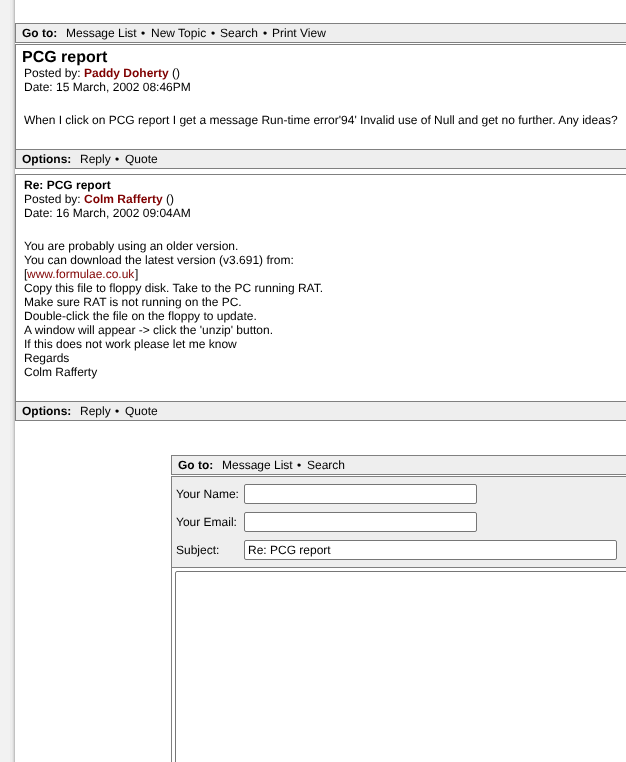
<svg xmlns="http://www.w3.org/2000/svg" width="626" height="762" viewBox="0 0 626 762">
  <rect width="100%" height="100%" fill="#f2f2f2"/>
  <image x="10" y="0" width="5" height="762" href="img1.png"/>
  <rect x="15" y="0" width="611" height="762" fill="#ffffff"/>
  <rect x="15.5" y="23.5" width="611" height="19" fill="#eeeeee" stroke="#808080"/>
  <text x="22" y="37" font-family="Liberation Sans" font-size="12" font-weight="bold" fill="#000000">Go to:</text>
  <text x="66" y="37" font-family="Liberation Sans" font-size="12" fill="#000000">Message List</text>
  <text x="141" y="37" font-family="Liberation Sans" font-size="12" fill="#000000">•</text>
  <text x="151" y="37" font-family="Liberation Sans" font-size="12" fill="#000000">New Topic</text>
  <text x="211" y="37" font-family="Liberation Sans" font-size="12" fill="#000000">•</text>
  <text x="220" y="37" font-family="Liberation Sans" font-size="12" fill="#000000">Search</text>
  <text x="263" y="37" font-family="Liberation Sans" font-size="12" fill="#000000">•</text>
  <text x="272" y="37" font-family="Liberation Sans" font-size="12" fill="#000000">Print View</text>
  <rect x="15.5" y="44.5" width="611" height="105" fill="none" stroke="#808080"/>
  <text x="22" y="62" font-family="Liberation Sans" font-size="16" font-weight="bold" fill="#000000">PCG report</text>
  <text x="24" y="77" font-family="Liberation Sans" font-size="12" fill="#000000">Posted by:</text>
  <text x="84" y="77" font-family="Liberation Sans" font-size="12" font-weight="bold" fill="#7f0000">Paddy Doherty</text>
  <text x="172" y="77" font-family="Liberation Sans" font-size="12" fill="#000000">()</text>
  <text x="24" y="91" font-family="Liberation Sans" font-size="12" fill="#000000">Date: 15 March, 2002 08:46PM</text>
  <text x="24" y="124" font-family="Liberation Sans" font-size="12" fill="#000000">When I click on PCG report I get a message Run-time error'94' Invalid use of Null and get no further. Any ideas?</text>
  <rect x="16" y="150" width="610" height="18" fill="#eeeeee"/>
  <rect x="15" y="168" width="611" height="1" fill="#808080"/>
  <rect x="15" y="150" width="1" height="19" fill="#808080"/>
  <text x="22" y="163" font-family="Liberation Sans" font-size="12" font-weight="bold" fill="#000000">Options:</text>
  <text x="80" y="163" font-family="Liberation Sans" font-size="12" fill="#000000">Reply</text>
  <text x="115" y="163" font-family="Liberation Sans" font-size="12" fill="#000000">•</text>
  <text x="125" y="163" font-family="Liberation Sans" font-size="12" fill="#000000">Quote</text>
  <rect x="15.5" y="174.5" width="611" height="227" fill="none" stroke="#808080"/>
  <text x="24" y="189" font-family="Liberation Sans" font-size="12" font-weight="bold" fill="#000000">Re: PCG report</text>
  <text x="24" y="203" font-family="Liberation Sans" font-size="12" fill="#000000">Posted by:</text>
  <text x="84" y="203" font-family="Liberation Sans" font-size="12" font-weight="bold" fill="#7f0000">Colm Rafferty</text>
  <text x="166" y="203" font-family="Liberation Sans" font-size="12" fill="#000000">()</text>
  <text x="24" y="217" font-family="Liberation Sans" font-size="12" fill="#000000">Date: 16 March, 2002 09:04AM</text>
  <text x="24" y="250" font-family="Liberation Sans" font-size="12" fill="#000000">You are probably using an older version.</text>
  <text x="24" y="264" font-family="Liberation Sans" font-size="12" fill="#000000">You can download the latest version (v3.691) from:</text>
  <text x="24" y="278" font-family="Liberation Sans" font-size="12" fill="#000000">[</text>
  <text x="27" y="278" font-family="Liberation Sans" font-size="12" fill="#7f0000">www.formulae.co.uk</text>
  <text x="135" y="278" font-family="Liberation Sans" font-size="12" fill="#000000">]</text>
  <text x="24" y="292" font-family="Liberation Sans" font-size="12" fill="#000000">Copy this file to floppy disk. Take to the PC running RAT.</text>
  <text x="24" y="306" font-family="Liberation Sans" font-size="12" fill="#000000">Make sure RAT is not running on the PC.</text>
  <text x="24" y="320" font-family="Liberation Sans" font-size="12" fill="#000000">Double-click the file on the floppy to update.</text>
  <text x="24" y="334" font-family="Liberation Sans" font-size="12" fill="#000000">A window will appear -&gt; click the 'unzip' button.</text>
  <text x="24" y="348" font-family="Liberation Sans" font-size="12" fill="#000000">If this does not work please let me know</text>
  <text x="24" y="362" font-family="Liberation Sans" font-size="12" fill="#000000">Regards</text>
  <text x="24" y="376" font-family="Liberation Sans" font-size="12" fill="#000000">Colm Rafferty</text>
  <rect x="16" y="402" width="610" height="18" fill="#eeeeee"/>
  <rect x="15" y="420" width="611" height="1" fill="#808080"/>
  <rect x="15" y="402" width="1" height="19" fill="#808080"/>
  <text x="22" y="415" font-family="Liberation Sans" font-size="12" font-weight="bold" fill="#000000">Options:</text>
  <text x="80" y="415" font-family="Liberation Sans" font-size="12" fill="#000000">Reply</text>
  <text x="115" y="415" font-family="Liberation Sans" font-size="12" fill="#000000">•</text>
  <text x="125" y="415" font-family="Liberation Sans" font-size="12" fill="#000000">Quote</text>
  <rect x="171.5" y="455.5" width="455" height="19" fill="#eeeeee" stroke="#808080"/>
  <text x="178" y="469" font-family="Liberation Sans" font-size="12" font-weight="bold" fill="#000000">Go to:</text>
  <text x="222" y="469" font-family="Liberation Sans" font-size="12" fill="#000000">Message List</text>
  <text x="297" y="469" font-family="Liberation Sans" font-size="12" fill="#000000">•</text>
  <text x="307" y="469" font-family="Liberation Sans" font-size="12" fill="#000000">Search</text>
  <rect x="172" y="477" width="454" height="90" fill="#eeeeee"/>
  <rect x="171" y="476" width="455" height="1" fill="#808080"/>
  <rect x="171" y="476" width="1" height="91" fill="#808080"/>
  <text x="176" y="498" font-family="Liberation Sans" font-size="12" fill="#000000">Your Name:</text>
  <rect x="244.5" y="484.5" width="232" height="19" rx="1.5" fill="#ffffff" stroke="#767676"/>
  <text x="176" y="526" font-family="Liberation Sans" font-size="12" fill="#000000">Your Email:</text>
  <rect x="244.5" y="512.5" width="232" height="19" rx="1.5" fill="#ffffff" stroke="#767676"/>
  <text x="176" y="554" font-family="Liberation Sans" font-size="12" fill="#000000">Subject:</text>
  <rect x="244.5" y="540.5" width="372" height="19" rx="1.5" fill="#ffffff" stroke="#767676"/>
  <text x="248" y="554" font-family="Liberation Sans" font-size="12" fill="#000000">Re: PCG report</text>
  <rect x="171.5" y="567.5" width="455" height="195" fill="none" stroke="#808080"/>
  <rect x="175.5" y="571.5" width="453" height="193" rx="1.5" fill="none" stroke="#767676"/>
</svg>
